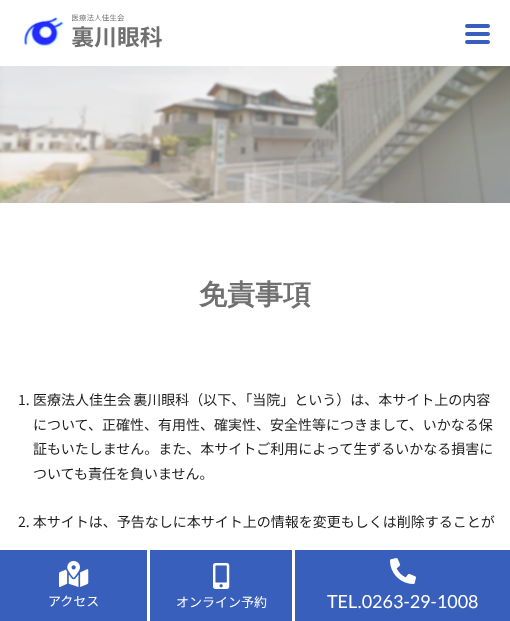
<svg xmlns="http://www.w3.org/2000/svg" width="510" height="621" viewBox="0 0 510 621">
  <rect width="100%" height="100%" fill="#ffffff"/>
  <image x="23" y="14" width="139" height="35" href="img1.png"/>
  <rect x="465" y="24" width="25" height="4" rx="2" fill="#395fbc"/>
  <rect x="465" y="32" width="25" height="4" rx="2" fill="#395fbc"/>
  <rect x="465" y="40" width="25" height="4" rx="2" fill="#395fbc"/>
  <image x="0" y="66" width="510" height="137" href="img2.png"/>
  <text x="199" y="304" font-family="WenQuanYi Zen Hei" font-size="28" font-weight="bold" fill="#707070">免責事項</text>
  <text x="18" y="405" font-family="Noto Sans JP" font-size="14" font-weight="100" fill="#1d1d1d">1.</text>
  <text x="33" y="405" word-spacing="-1" font-family="Noto Sans JP" font-size="14" font-weight="100" fill="#1d1d1d">医療法人佳生会 裏川眼科（以下、「当院」という）は、本サイト上の内容</text>
  <text x="33" y="430" font-family="Noto Sans JP" font-size="14" font-weight="100" fill="#1d1d1d">について、正確性、有用性、確実性、安全性等につきまして、いかなる保</text>
  <text x="33" y="454" font-family="Noto Sans JP" font-size="14" font-weight="100" fill="#1d1d1d">証もいたしません。また、本サイトご利用によって生ずるいかなる損害に</text>
  <text x="33" y="479" font-family="Noto Sans JP" font-size="14" font-weight="100" fill="#1d1d1d">ついても責任を負いません。</text>
  <text x="18" y="527" font-family="Noto Sans JP" font-size="14" font-weight="100" fill="#1d1d1d">2. 本サイトは、予告なしに本サイト上の情報を変更もしくは削除することが</text>
  <rect x="0" y="550" width="147" height="71" fill="#395fbc"/>
  <image x="59" y="561" width="30" height="26" href="img3.png"/>
  <text x="48" y="606" font-family="Noto Sans JP" font-size="13" font-weight="100" fill="#ffffff">アクセス</text>
  <rect x="150" y="550" width="142" height="71" fill="#395fbc"/>
  <image x="213" y="563" width="17" height="26" href="img4.png"/>
  <text x="176" y="607" font-family="Noto Sans JP" font-size="13" font-weight="100" fill="#ffffff">オンライン予約</text>
  <rect x="295" y="550" width="215" height="71" fill="#395fbc"/>
  <image x="390" y="558" width="26" height="26" href="img5.png"/>
  <text x="327" y="608" font-family="Lato" font-size="18" fill="#ffffff">TEL.0263-29-1008</text>
</svg>
